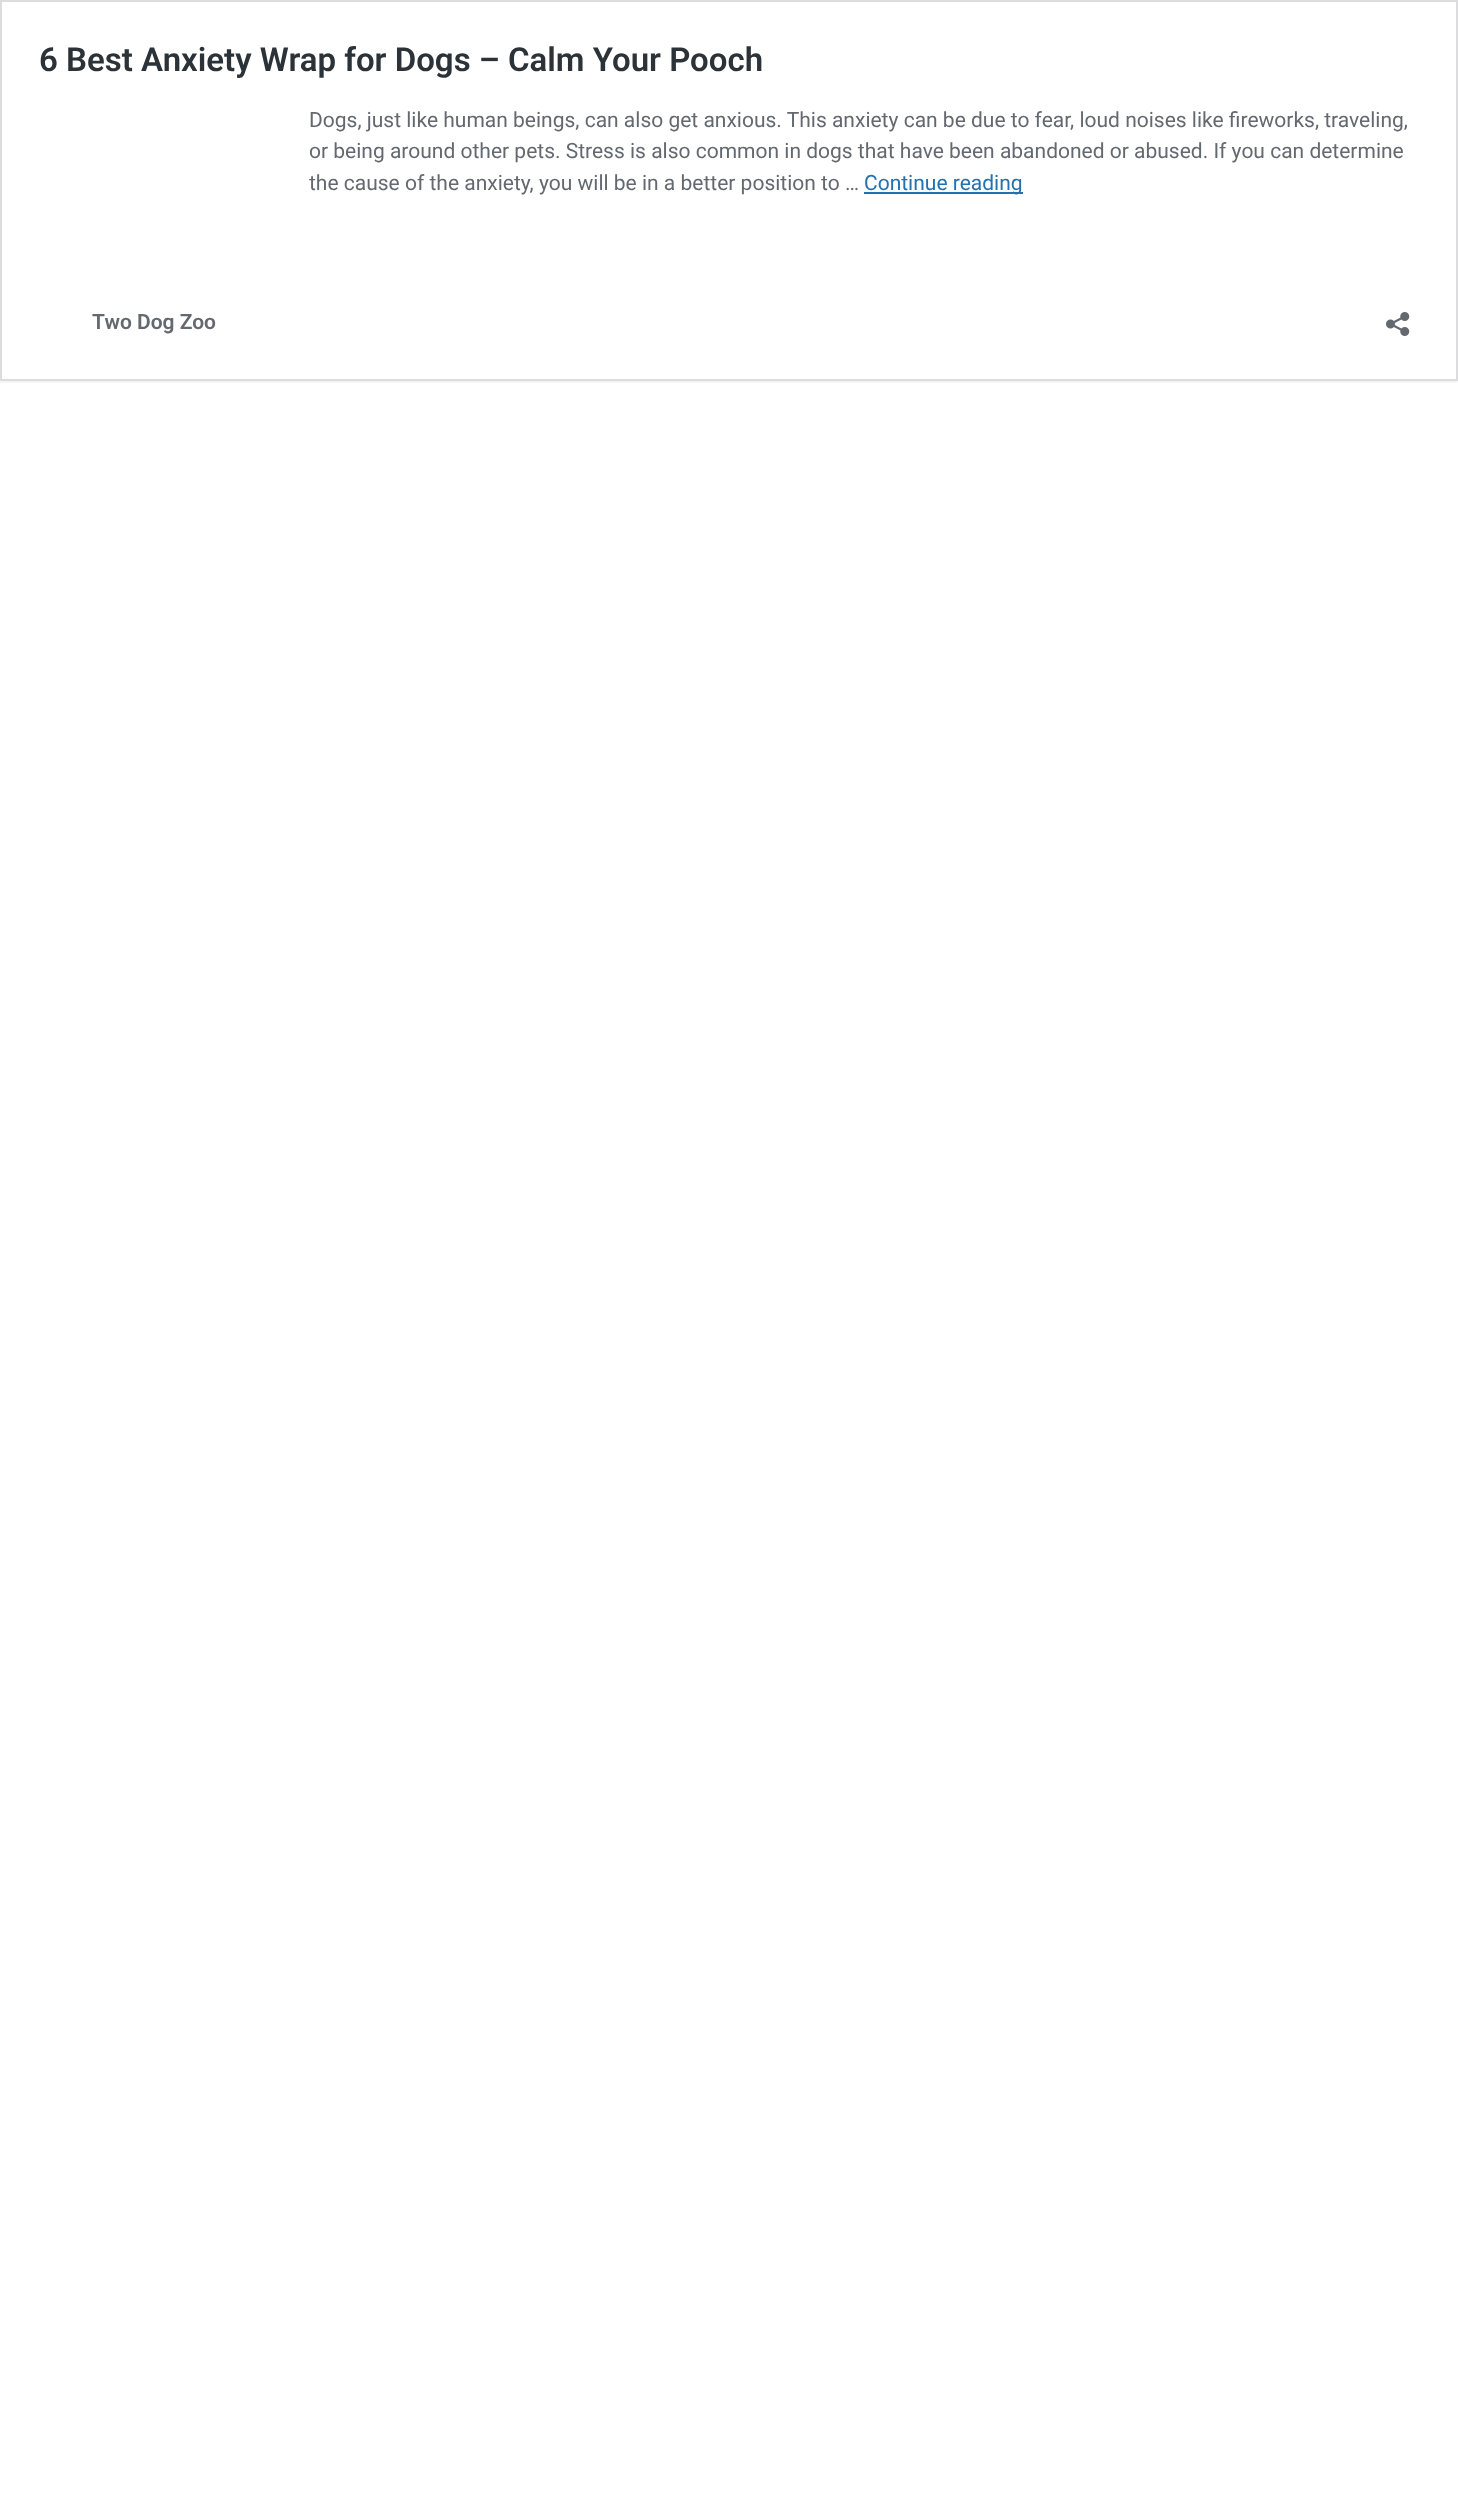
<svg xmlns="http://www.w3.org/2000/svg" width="1458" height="2494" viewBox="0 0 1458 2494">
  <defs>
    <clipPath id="clip1"><rect x="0" y="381" width="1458" height="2"/></clipPath>
    <filter id="blur1" x="-50%" y="-200%" width="200%" height="500%"><feGaussianBlur stdDeviation="1"/></filter>
  </defs>
  <rect width="100%" height="100%" fill="#ffffff"/>
  <g clip-path="url(#clip1)">
    <rect x="0" y="2" width="1458" height="381" fill="#000000" fill-opacity="0.05" filter="url(#blur1)"/>
  </g>
  <rect x="1" y="1" width="1456" height="379" fill="none" stroke="#dcdcde" stroke-width="2"/>
  <text x="39" y="71" font-family="Roboto" font-size="33" font-weight="600" fill="#2c3338">6 Best Anxiety Wrap for Dogs – Calm Your Pooch</text>
  <text x="309" y="127" font-family="Roboto" font-size="21" fill="#646970">Dogs, just like human beings, can also get anxious. This anxiety can be due to fear, loud noises like fireworks, traveling,</text>
  <text x="309" y="158" font-family="Roboto" font-size="21" fill="#646970">or being around other pets. Stress is also common in dogs that have been abandoned or abused. If you can determine</text>
  <text x="309" y="190" font-family="Roboto" font-size="21" fill="#646970">the cause of the anxiety, you will be in a better position to …</text>
  <rect x="864" y="192" width="159" height="2" fill="#2271b1"/>
  <text x="864" y="190" font-family="Roboto" font-size="21" fill="#2271b1">Continue reading</text>
  <text x="92" y="329" font-family="Roboto" font-size="21" font-weight="600" fill="#646970">Two Dog Zoo</text>
  <image x="1386" y="312" width="24" height="24" href="img1.png"/>
</svg>
